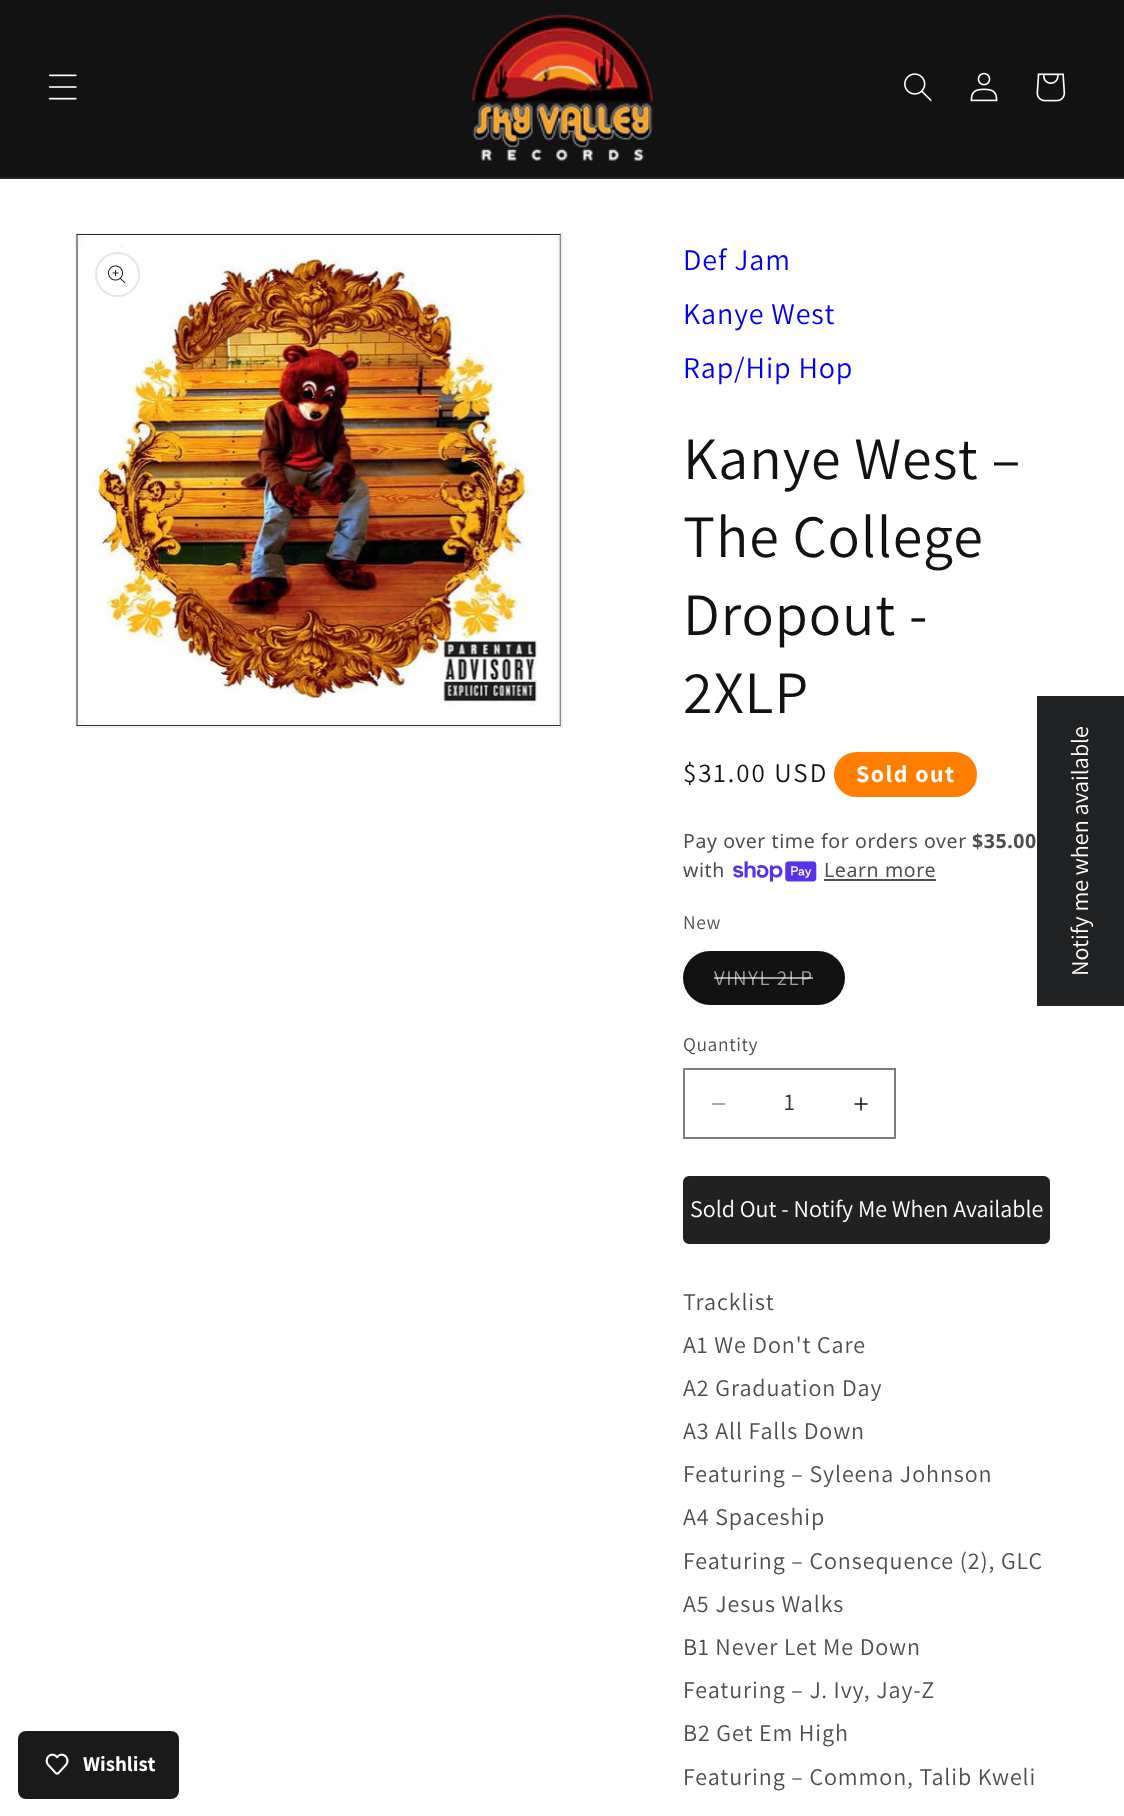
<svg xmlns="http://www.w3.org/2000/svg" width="1124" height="1816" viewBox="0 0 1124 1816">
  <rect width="100%" height="100%" fill="#ffffff"/>
  <rect x="0" y="0" width="1124" height="177" fill="#121212"/>
  <rect x="0" y="177" width="1124" height="2" fill="#252525"/>
  <image x="48" y="74" width="29" height="26" href="img1.png"/>
  <image x="472" y="14" width="181" height="147" href="img2.png"/>
  <image x="904" y="73" width="28" height="28" href="img3.png"/>
  <image x="970" y="72" width="28" height="30" href="img4.png"/>
  <image x="1036" y="73" width="30" height="29" href="img5.png"/>
  <rect x="76" y="234" width="486" height="493" fill="none" stroke="#f3f3f3" stroke-width="2"/>
  <image x="76" y="234" width="485" height="492" href="img6.png"/>
  <circle cx="117.5" cy="274.5" r="21.5" fill="none" stroke="#e6e6e6" stroke-width="2"/>
  <image x="108" y="265" width="18" height="19" href="img7.png"/>
  <text x="683" y="270" font-family="Assistant" font-size="30" letter-spacing="0.9" fill="#0000ee">Def Jam</text>
  <text x="683" y="324" font-family="Assistant" font-size="30" letter-spacing="0.9" fill="#0000ee">Kanye West</text>
  <text x="683" y="378" font-family="Assistant" font-size="30" letter-spacing="0.9" fill="#0000ee">Rap/Hip Hop</text>
  <text x="683" y="479" font-family="Assistant" font-size="60" letter-spacing="0.9" fill="#121212">Kanye West –</text>
  <text x="683" y="557" font-family="Assistant" font-size="60" letter-spacing="0.9" fill="#121212">The College</text>
  <text x="683" y="635" font-family="Assistant" font-size="60" letter-spacing="0.9" fill="#121212">Dropout -</text>
  <text x="683" y="713" font-family="Assistant" font-size="60" letter-spacing="0.9" fill="#121212">2XLP</text>
  <text x="683" y="782" font-family="Assistant" font-size="27" letter-spacing="2" fill="#121212">$31.00 USD</text>
  <rect x="835" y="753" width="141" height="43" rx="21.5" fill="#ff7e00" stroke="#ff7e00" stroke-width="2"/>
  <text x="856" y="782" font-family="Assistant" font-size="24" font-weight="bold" letter-spacing="1.5" fill="#ffffff">Sold out</text>
  <text x="683" y="848" font-family="Noto Sans" font-size="19.5" letter-spacing="0.6" fill="#4d4d4d">Pay over time for orders over</text>
  <text x="972" y="848" font-family="Noto Sans" font-size="19.5" font-weight="bold" letter-spacing="0.6" fill="#4d4d4d">$35.00</text>
  <text x="683" y="877" font-family="Noto Sans" font-size="19.5" letter-spacing="0.6" fill="#4d4d4d">with</text>
  <image x="733" y="861" width="84" height="21" href="img8.png"/>
  <text x="824" y="877" font-family="Noto Sans" font-size="19.5" letter-spacing="0.6" fill="#4d4d4d">Learn more</text>
  <rect x="824" y="879" width="112" height="2" fill="#4d4d4d"/>
  <text x="683" y="929" font-family="Assistant" font-size="19.5" letter-spacing="0.6" fill="#4d4d4d">New</text>
  <rect x="683" y="951" width="162" height="54" rx="27" fill="#121212"/>
  <rect x="684" y="952" width="160" height="52" rx="26" fill="none" stroke="#121212" stroke-opacity="0.1" stroke-width="2"/>
  <text x="714" y="985" font-family="Assistant" font-size="21" letter-spacing="1.5" fill="#a0a0a0">VINYL 2LP</text>
  <rect x="714" y="977" width="99" height="2" fill="#ffffff" fill-opacity="0.6"/>
  <text x="683" y="1051" font-family="Assistant" font-size="19.5" letter-spacing="0.6" fill="#4d4d4d">Quantity</text>
  <image x="711" y="1103" width="15" height="2" href="img9.png"/>
  <image x="854" y="1097" width="14" height="14" href="img10.png"/>
  <rect x="684" y="1069" width="211" height="69" fill="none" stroke="#7d7d7d" stroke-width="2"/>
  <text x="784" y="1110" font-family="Assistant" font-size="24" fill="#363636">1</text>
  <rect x="684" y="1177" width="365" height="66" rx="5" fill="#212121" stroke="#212121" stroke-width="2"/>
  <text x="690" y="1217" font-family="Assistant" font-size="24" fill="#ffffff">Sold Out - Notify Me When Available</text>
  <text x="683" y="1310" font-family="Assistant" font-size="24" letter-spacing="0.9" fill="#4d4d4d">Tracklist</text>
  <text x="683" y="1353" font-family="Assistant" font-size="24" letter-spacing="0.9" fill="#4d4d4d">A1 We Don't Care</text>
  <text x="683" y="1396" font-family="Assistant" font-size="24" letter-spacing="0.9" fill="#4d4d4d">A2 Graduation Day</text>
  <text x="683" y="1439" font-family="Assistant" font-size="24" letter-spacing="0.9" fill="#4d4d4d">A3 All Falls Down</text>
  <text x="683" y="1482" font-family="Assistant" font-size="24" letter-spacing="0.9" fill="#4d4d4d">Featuring – Syleena Johnson</text>
  <text x="683" y="1525" font-family="Assistant" font-size="24" letter-spacing="0.9" fill="#4d4d4d">A4 Spaceship</text>
  <text x="683" y="1569" font-family="Assistant" font-size="24" letter-spacing="0.9" fill="#4d4d4d">Featuring – Consequence (2), GLC</text>
  <text x="683" y="1612" font-family="Assistant" font-size="24" letter-spacing="0.9" fill="#4d4d4d">A5 Jesus Walks</text>
  <text x="683" y="1655" font-family="Assistant" font-size="24" letter-spacing="0.9" fill="#4d4d4d">B1 Never Let Me Down</text>
  <text x="683" y="1698" font-family="Assistant" font-size="24" letter-spacing="0.9" fill="#4d4d4d">Featuring – J. Ivy, Jay-Z</text>
  <text x="683" y="1741" font-family="Assistant" font-size="24" letter-spacing="0.9" fill="#4d4d4d">B2 Get Em High</text>
  <text x="683" y="1785" font-family="Assistant" font-size="24" letter-spacing="0.9" fill="#4d4d4d">Featuring – Common, Talib Kweli</text>
  <rect x="1037" y="696" width="87" height="310" fill="#202223"/>
  <text x="1088" y="976" transform="rotate(-90 1088 976)" font-family="Assistant" font-size="24" fill="#ffffff">Notify me when available</text>
  <rect x="18" y="1731" width="161" height="68" rx="8" fill="#1a1a1a"/>
  <image x="45" y="1753" width="24" height="22" href="img11.png"/>
  <text x="83" y="1771" font-family="Assistant" font-size="21" font-weight="bold" fill="#ffffff">Wishlist</text>
</svg>
